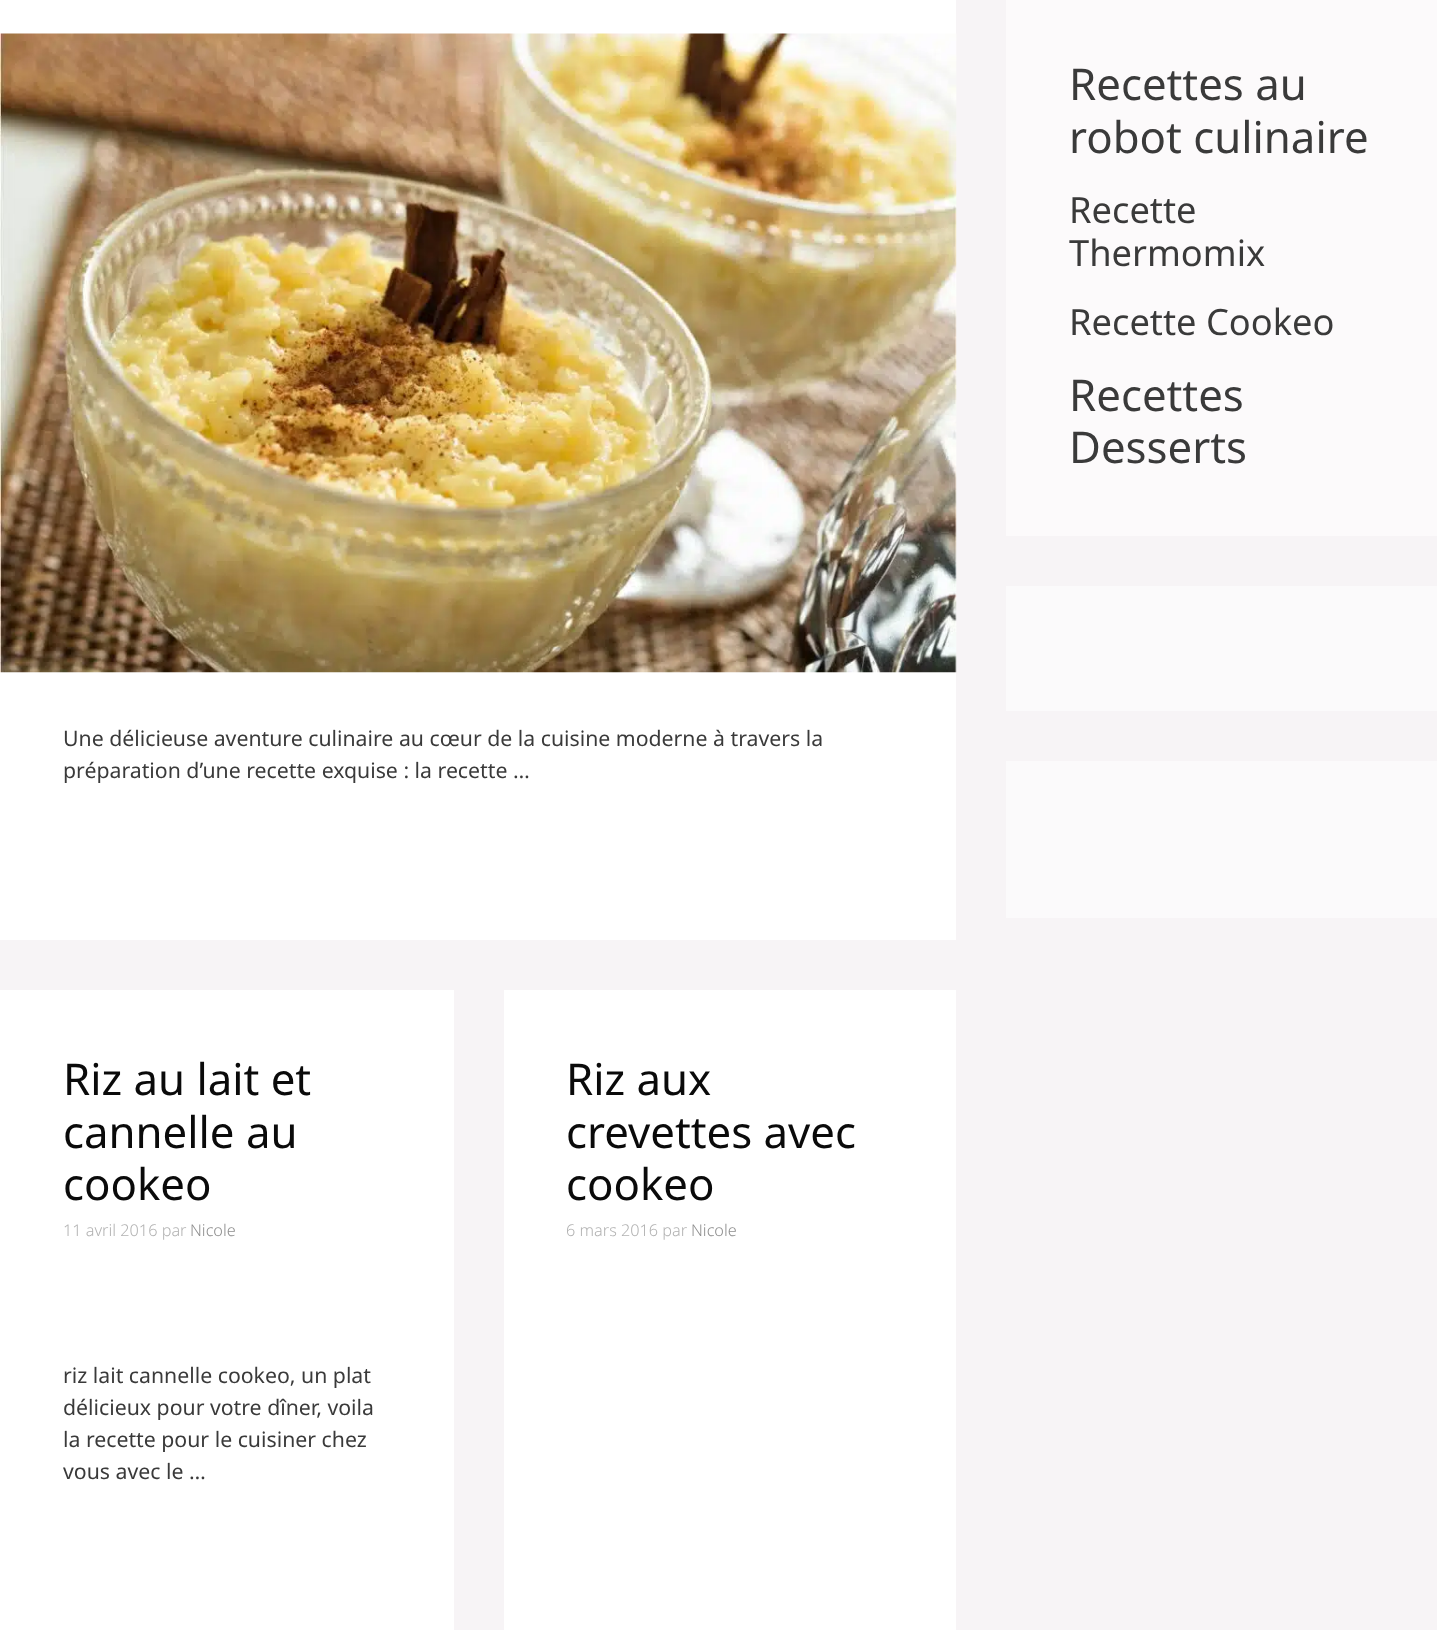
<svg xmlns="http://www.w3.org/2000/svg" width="1437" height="1630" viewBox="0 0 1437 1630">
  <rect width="100%" height="100%" fill="#f7f4f6"/>
  <rect x="1006" y="0" width="431" height="536" fill="#fcfafb"/>
  <text x="1069" y="100" font-family="Noto Sans" font-size="43.75" fill="#3a3a3a">Recettes au</text>
  <text x="1069" y="153" font-family="Noto Sans" font-size="43.75" fill="#3a3a3a">robot culinaire</text>
  <text x="1069" y="223" font-family="Noto Sans" font-size="36.25" fill="#3a3a3a">Recette</text>
  <text x="1069" y="266" font-family="Noto Sans" font-size="36.25" fill="#3a3a3a">Thermomix</text>
  <text x="1069" y="335" font-family="Noto Sans" font-size="36.25" fill="#3a3a3a">Recette Cookeo</text>
  <text x="1069" y="411" font-family="Noto Sans" font-size="43.75" fill="#3a3a3a">Recettes</text>
  <text x="1069" y="463" font-family="Noto Sans" font-size="43.75" fill="#3a3a3a">Desserts</text>
  <rect x="1006" y="586" width="431" height="125" fill="#fbfafb"/>
  <rect x="1006" y="761" width="431" height="157" fill="#fbfafb"/>
  <rect x="0" y="0" width="956" height="940" fill="#ffffff"/>
  <image x="0" y="33" width="957" height="640" href="img1.png"/>
  <text x="63" y="746" font-family="Noto Sans" font-size="21.25" fill="#3a3a3a">Une délicieuse aventure culinaire au cœur de la cuisine moderne à travers la</text>
  <text x="63" y="778" font-family="Noto Sans" font-size="21.25" fill="#3a3a3a">préparation d’une recette exquise : la recette …</text>
  <rect x="0" y="990" width="454" height="640" fill="#ffffff"/>
  <text x="63" y="1095" font-family="Noto Sans" font-size="43.75" fill="#0a0a0a">Riz au lait et</text>
  <text x="63" y="1148" font-family="Noto Sans" font-size="43.75" fill="#0a0a0a">cannelle au</text>
  <text x="63" y="1200" font-family="Noto Sans" font-size="43.75" fill="#0a0a0a">cookeo</text>
  <text x="63" y="1236" font-family="Noto Sans" font-size="16.25" font-weight="300" fill="#b2b2b2">11 avril 2016 par</text>
  <text x="190" y="1236" font-family="Noto Sans" font-size="16.25" font-weight="300" fill="#8e8e8e">Nicole</text>
  <text x="63" y="1383" font-family="Noto Sans" font-size="21.25" fill="#3a3a3a">riz lait cannelle cookeo, un plat</text>
  <text x="63" y="1415" font-family="Noto Sans" font-size="21.25" fill="#3a3a3a">délicieux pour votre dîner, voila</text>
  <text x="63" y="1447" font-family="Noto Sans" font-size="21.25" fill="#3a3a3a">la recette pour le cuisiner chez</text>
  <text x="63" y="1479" font-family="Noto Sans" font-size="21.25" fill="#3a3a3a">vous avec le …</text>
  <rect x="504" y="990" width="452" height="640" fill="#ffffff"/>
  <text x="566" y="1095" font-family="Noto Sans" font-size="43.75" fill="#0a0a0a">Riz aux</text>
  <text x="566" y="1148" font-family="Noto Sans" font-size="43.75" fill="#0a0a0a">crevettes avec</text>
  <text x="566" y="1200" font-family="Noto Sans" font-size="43.75" fill="#0a0a0a">cookeo</text>
  <text x="566" y="1236" font-family="Noto Sans" font-size="16.25" font-weight="300" fill="#b2b2b2">6 mars 2016 par</text>
  <text x="691" y="1236" font-family="Noto Sans" font-size="16.25" font-weight="300" fill="#8e8e8e">Nicole</text>
</svg>
